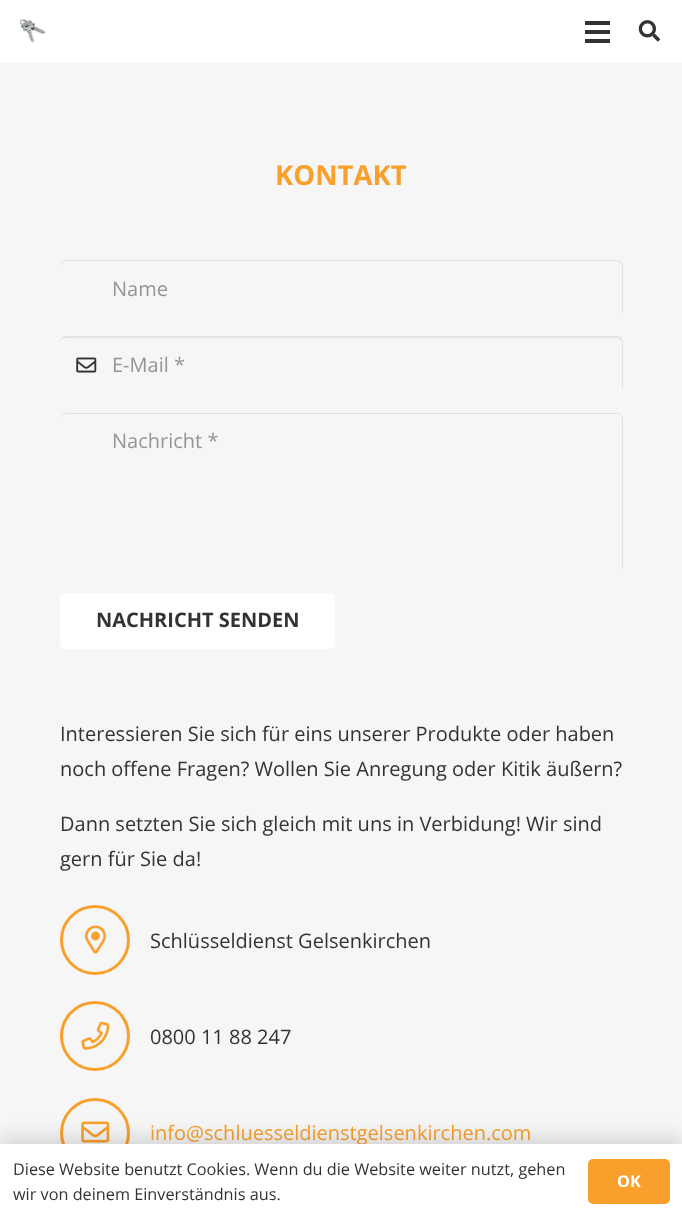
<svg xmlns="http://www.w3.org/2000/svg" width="682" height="1218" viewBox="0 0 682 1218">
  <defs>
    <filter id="blur1" x="-50%" y="-200%" width="200%" height="500%"><feGaussianBlur stdDeviation="9.5"/></filter>
  </defs>
  <rect width="100%" height="100%" fill="#f6f6f6"/>
  <rect x="0" y="0" width="682" height="63" fill="#ffffff"/>
  <image x="20" y="19" width="26" height="24" href="img1.png"/>
  <rect x="585" y="30" width="25" height="4" fill="#333333"/>
  <rect x="585" y="21" width="25" height="4" fill="#333333"/>
  <rect x="585" y="39" width="25" height="4" fill="#333333"/>
  <image x="638" y="20" width="22" height="22" href="img2.png"/>
  <text x="275" y="185" font-family="Open Sans" font-size="27.5" font-weight="bold" fill="#f9a02c">KONTAKT</text>
  <path d="M66 261H616C620 261 622 264 622 267V314C623 313 623 311 623 310V266C623 263 620 260 617 260H66C63 260 60 263 60 266V267C60 264 63 261 66 261Z" fill="#e2e2e2"/>
  <text x="112" y="296" font-family="Open Sans" font-size="20" fill="#959595">Name</text>
  <path d="M66 338H616C620 338 622 340 622 344V388C622 389 622 390 621 391C622 390 623 389 623 387V342C623 339 620 336 617 336H66C63 336 60 339 60 342V344C60 340 63 338 66 338Z" fill="#e2e2e2"/>
  <image x="76" y="357" width="21" height="16" href="img3.png"/>
  <text x="112" y="372" font-family="Open Sans" font-size="20" fill="#959595">E-Mail *</text>
  <path d="M66 414H616C620 414 622 416 622 420V568C622 569 622 570 621 571C622 570 623 569 623 567V419C623 416 620 413 617 413H66C63 413 60 416 60 419V420C60 416 63 414 66 414Z" fill="#e2e2e2"/>
  <text x="112" y="448" font-family="Open Sans" font-size="20" fill="#959595">Nachricht *</text>
  <rect x="60" y="593" width="275" height="56" rx="6" fill="#ffffff"/>
  <text x="96" y="627" font-family="Open Sans" font-size="20" font-weight="bold" fill="#333333">NACHRICHT SENDEN</text>
  <text x="60" y="741" font-family="Open Sans" font-size="20" fill="#333333">Interessieren Sie sich für eins unserer Produkte oder haben</text>
  <text x="60" y="776" font-family="Open Sans" font-size="20" fill="#333333">noch offene Fragen? Wollen Sie Anregung oder Kitik äußern?</text>
  <text x="60" y="831" font-family="Open Sans" font-size="20" fill="#333333">Dann setzten Sie sich gleich mit uns in Verbidung! Wir sind</text>
  <text x="60" y="866" font-family="Open Sans" font-size="20" fill="#333333">gern für Sie da!</text>
  <circle cx="95" cy="940" r="33.5" fill="none" stroke="#f9a02c" stroke-width="3"/>
  <image x="85" y="925" width="21" height="29" href="img4.png"/>
  <text x="150" y="948" font-family="Open Sans" font-size="20" fill="#333333">Schlüsseldienst Gelsenkirchen</text>
  <circle cx="95" cy="1036" r="33.5" fill="none" stroke="#f9a02c" stroke-width="3"/>
  <image x="81" y="1021" width="29" height="29" href="img5.png"/>
  <text x="150" y="1044" font-family="Open Sans" font-size="20" fill="#333333">0800 11 88 247</text>
  <circle cx="95" cy="1133" r="33.5" fill="none" stroke="#f9a02c" stroke-width="3"/>
  <image x="81" y="1121" width="29" height="22" href="img6.png"/>
  <text x="150" y="1140" font-family="Open Sans" font-size="20" fill="#f9a02c">info@schluesseldienstgelsenkirchen.com</text>
  <rect x="0" y="1138" width="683" height="75" fill="#000000" fill-opacity="0.15" filter="url(#blur1)"/>
  <rect x="0" y="1144" width="682" height="74" fill="#ffffff"/>
  <text x="13" y="1175" font-family="Open Sans" font-size="16.25" fill="#333333">Diese Website benutzt Cookies. Wenn du die Website weiter nutzt, gehen</text>
  <text x="13" y="1200" font-family="Open Sans" font-size="16.25" fill="#333333">wir von deinem Einverständnis aus.</text>
  <rect x="588" y="1159" width="82" height="45" rx="5" fill="#f9a02c"/>
  <text x="617" y="1187" font-family="Open Sans" font-size="16.25" font-weight="bold" fill="#ffffff">OK</text>
</svg>
